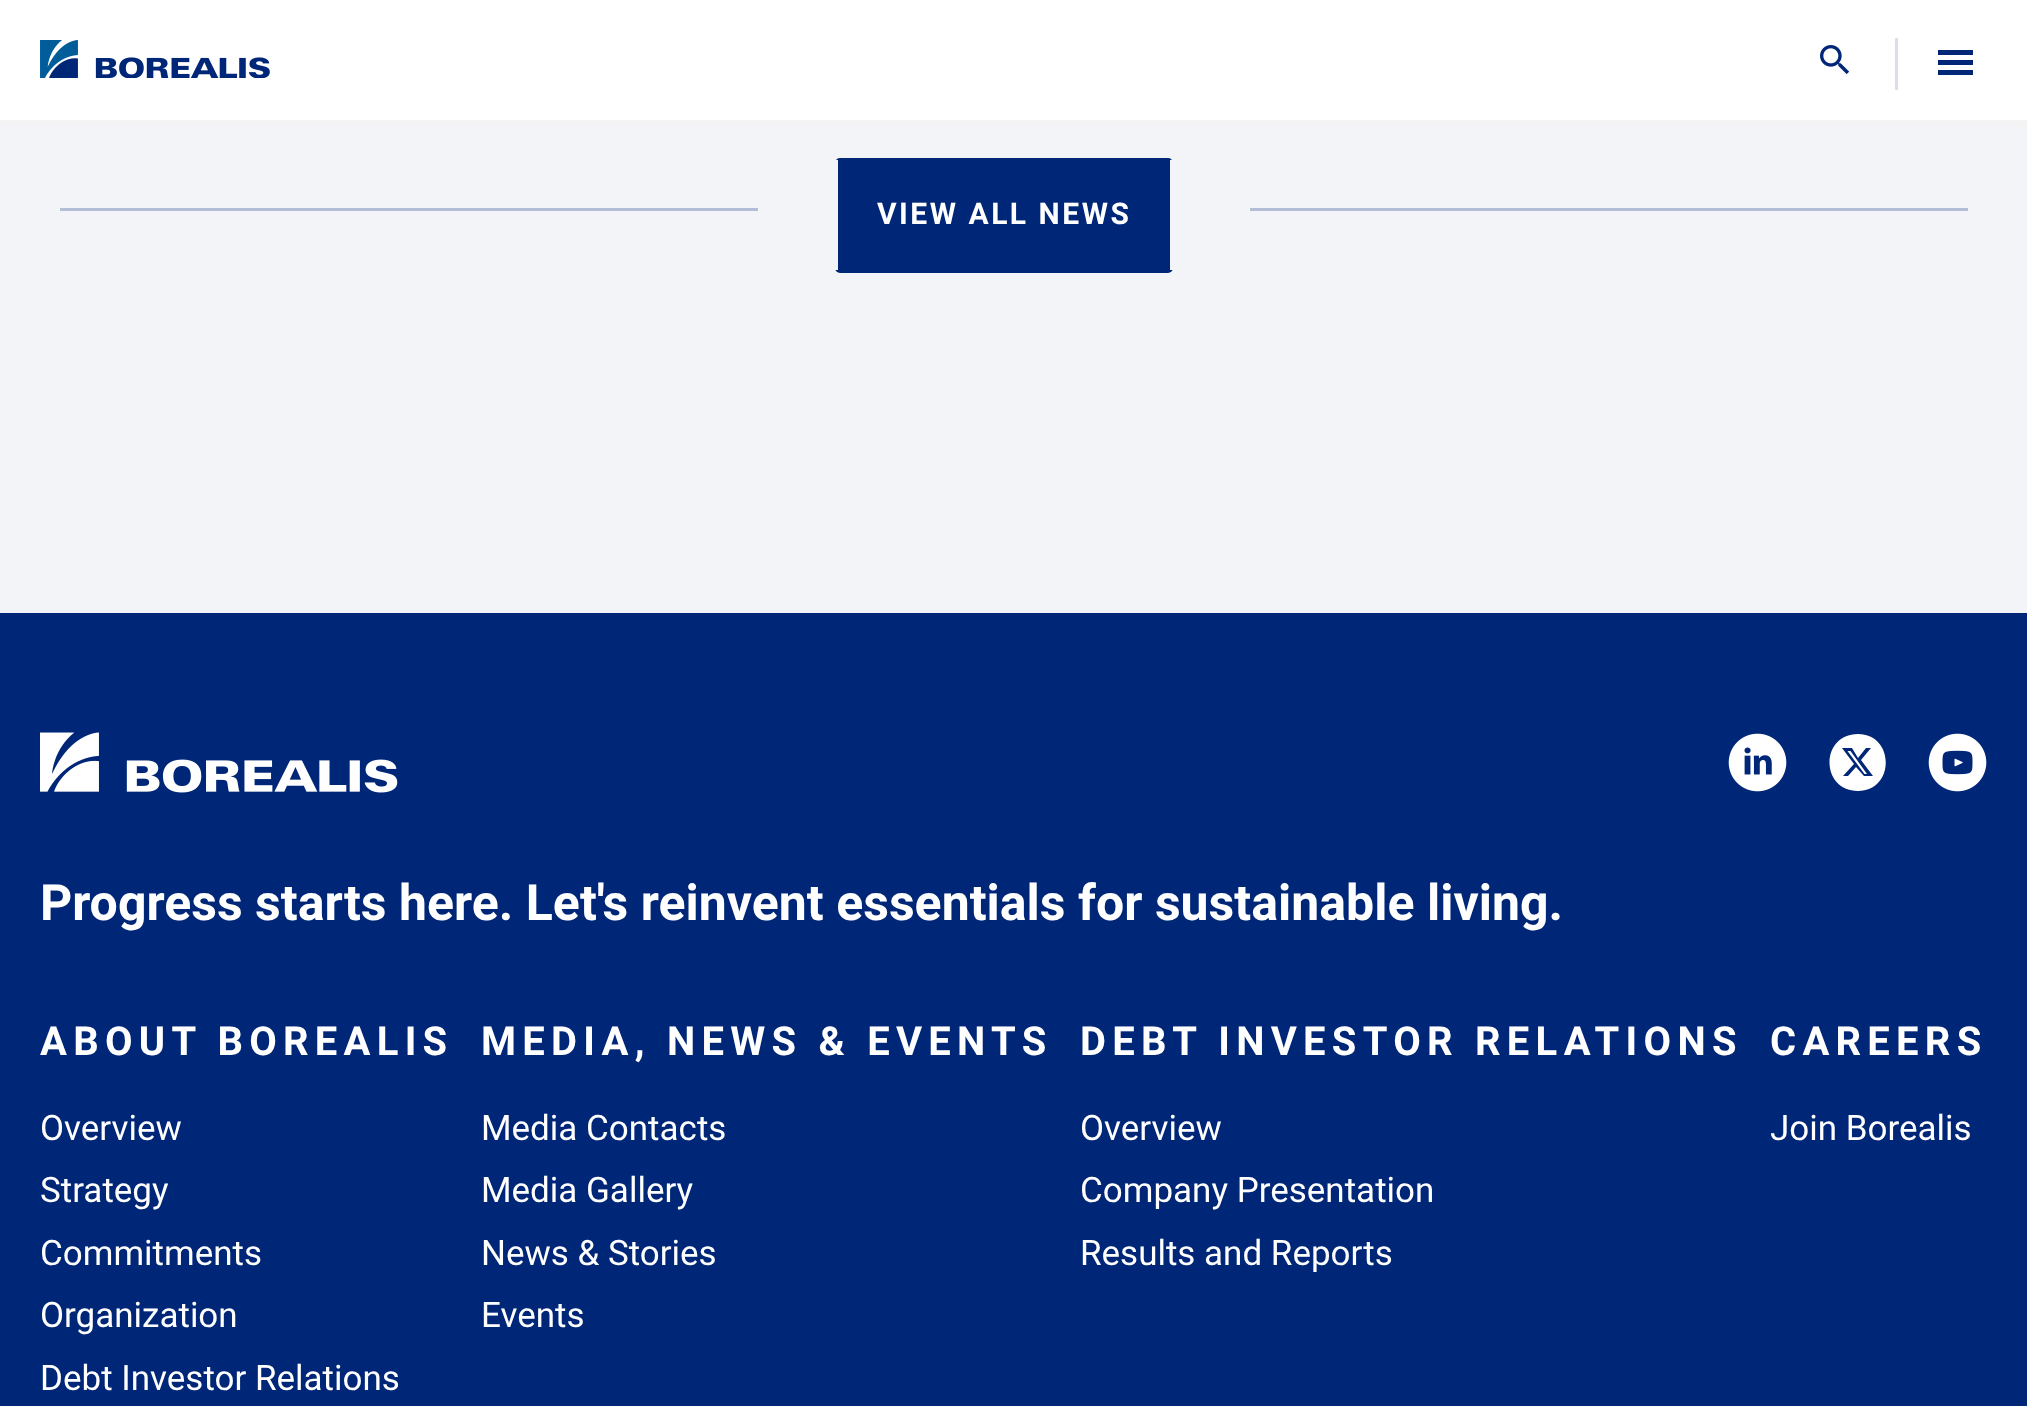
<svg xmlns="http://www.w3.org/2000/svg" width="2027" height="1406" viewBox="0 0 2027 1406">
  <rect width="100%" height="100%" fill="#002677"/>
  <rect x="0" y="0" width="2027" height="120" fill="#ffffff"/>
  <rect x="1895" y="38" width="3" height="52" fill="#d9deea"/>
  <image x="1820" y="45" width="30" height="30" href="img1.png"/>
  <rect x="0" y="120" width="2027" height="3" fill="#f4f4f4"/>
  <image x="40" y="40" width="230" height="38" href="img2.png"/>
  <rect x="1938" y="50" width="35" height="5" fill="#002677"/>
  <rect x="1938" y="60" width="35" height="5" fill="#002677"/>
  <rect x="1938" y="70" width="35" height="5" fill="#002677"/>
  <rect x="0" y="123" width="2027" height="3" fill="#f3f3f3"/>
  <rect x="0" y="126" width="2027" height="487" fill="#f2f4f8"/>
  <rect x="60" y="208" width="1908" height="3" fill="#b3bed6"/>
  <rect x="836.5" y="159.5" width="335" height="112" rx="3.5" fill="#002677" stroke="#002677" stroke-width="3"/>
  <rect x="758" y="160" width="80" height="110" fill="#f2f4f8"/>
  <text x="877" y="224" font-family="Roboto" font-size="30" font-weight="bold" letter-spacing="2.5" fill="#ffffff">VIEW ALL NEWS</text>
  <rect x="1170" y="160" width="80" height="110" fill="#f2f4f8"/>
  <image x="40" y="732" width="358" height="61" href="img3.png"/>
  <image x="1728" y="733" width="59" height="59" href="img4.png"/>
  <path d="M1847.5 751L1864.5 774H1867L1850.5 751Z" fill="#ffffff"/>
  <path d="M1858 734C1820 734 1820 791 1858 791C1895 791 1895 734 1858 734ZM1864 776L1856 767L1848 776H1843L1854 764L1842 748H1852L1858 758L1866 748H1871L1861 760L1873 776Z" fill="#ffffff"/>
  <image x="1928" y="733" width="59" height="59" href="img5.png"/>
  <text x="40" y="920" font-family="Roboto" font-size="50" font-weight="bold" fill="#ffffff">Progress starts here. Let's reinvent essentials for sustainable living.</text>
  <text x="40" y="1055" font-family="Roboto" font-size="40" font-weight="bold" letter-spacing="6.25" fill="#ffffff">ABOUT BOREALIS</text>
  <text x="40" y="1140" font-family="Roboto" font-size="35" fill="#ffffff">Overview</text>
  <text x="40" y="1202" font-family="Roboto" font-size="35" fill="#ffffff">Strategy</text>
  <text x="40" y="1265" font-family="Roboto" font-size="35" fill="#ffffff">Commitments</text>
  <text x="40" y="1327" font-family="Roboto" font-size="35" fill="#ffffff">Organization</text>
  <text x="40" y="1390" font-family="Roboto" font-size="35" fill="#ffffff">Debt Investor Relations</text>
  <text x="481" y="1055" font-family="Roboto" font-size="40" font-weight="bold" letter-spacing="6.25" fill="#ffffff">MEDIA, NEWS &amp; EVENTS</text>
  <text x="481" y="1140" font-family="Roboto" font-size="35" fill="#ffffff">Media Contacts</text>
  <text x="481" y="1202" font-family="Roboto" font-size="35" fill="#ffffff">Media Gallery</text>
  <text x="481" y="1265" font-family="Roboto" font-size="35" fill="#ffffff">News &amp; Stories</text>
  <text x="481" y="1327" font-family="Roboto" font-size="35" fill="#ffffff">Events</text>
  <text x="1080" y="1055" font-family="Roboto" font-size="40" font-weight="bold" letter-spacing="6.25" fill="#ffffff">DEBT INVESTOR RELATIONS</text>
  <text x="1080" y="1140" font-family="Roboto" font-size="35" fill="#ffffff">Overview</text>
  <text x="1080" y="1202" font-family="Roboto" font-size="35" fill="#ffffff">Company Presentation</text>
  <text x="1080" y="1265" font-family="Roboto" font-size="35" fill="#ffffff">Results and Reports</text>
  <text x="1770" y="1055" font-family="Roboto" font-size="40" font-weight="bold" letter-spacing="6.25" fill="#ffffff">CAREERS</text>
  <text x="1770" y="1140" font-family="Roboto" font-size="35" fill="#ffffff">Join Borealis</text>
</svg>
